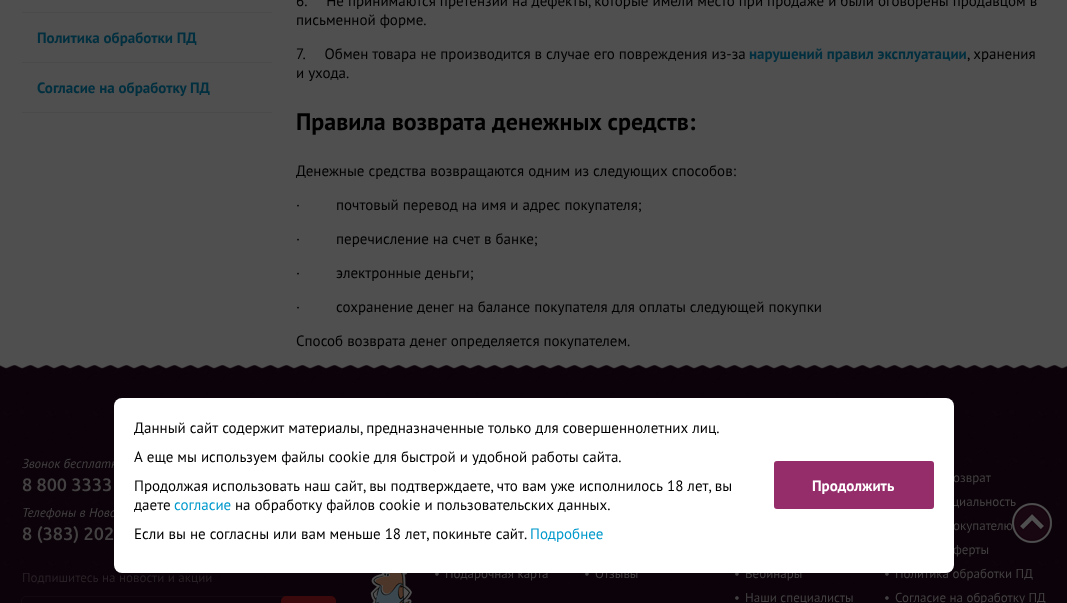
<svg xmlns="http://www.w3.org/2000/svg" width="1067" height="603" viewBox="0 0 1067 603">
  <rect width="100%" height="100%" fill="#4f4f4f"/>
  <rect x="22" y="12" width="250" height="1" fill="#4a4a4a"/>
  <rect x="22" y="62" width="250" height="1" fill="#4a4a4a"/>
  <text x="37" y="43" font-family="PT Sans" font-size="15" font-weight="bold" fill="#002f3f">Политика обработки ПД</text>
  <rect x="22" y="112" width="250" height="1" fill="#4a4a4a"/>
  <text x="37" y="93" font-family="PT Sans" font-size="15" font-weight="bold" fill="#002f3f">Согласие на обработку ПД</text>
  <text x="296" y="6" font-family="PT Sans" font-size="15" fill="#000000" xml:space="preserve">6.     Не принимаются претензии на дефекты, которые имели место при продаже и были оговорены продавцом в</text>
  <text x="296" y="25" font-family="PT Sans" font-size="15" fill="#000000">письменной форме.</text>
  <text x="296" y="59" font-family="PT Sans" font-size="15" fill="#000000" xml:space="preserve">7.     Обмен товара не производится в случае его повреждения из-за</text>
  <text x="749" y="59" font-family="PT Sans" font-size="15" font-weight="bold" fill="#002f3f">нарушений правил эксплуатации</text>
  <text x="967" y="59" font-family="PT Sans" font-size="15" fill="#000000">, хранения</text>
  <text x="296" y="78" font-family="PT Sans" font-size="15" fill="#000000">и ухода.</text>
  <text x="296" y="130" font-family="PT Sans" font-size="24" font-weight="bold" fill="#000000">Правила возврата денежных средств:</text>
  <text x="296" y="176" font-family="PT Sans" font-size="15" fill="#000000">Денежные средства возвращаются одним из следующих способов:</text>
  <text x="296" y="210" font-family="PT Sans" font-size="15" fill="#000000" xml:space="preserve">·         почтовый перевод на имя и адрес покупателя;</text>
  <text x="296" y="244" font-family="PT Sans" font-size="15" fill="#000000" xml:space="preserve">·         перечисление на счет в банке;</text>
  <text x="296" y="278" font-family="PT Sans" font-size="15" fill="#000000" xml:space="preserve">·         электронные деньги;</text>
  <text x="296" y="312" font-family="PT Sans" font-size="15" fill="#000000" xml:space="preserve">·         сохранение денег на балансе покупателя для оплаты следующей покупки</text>
  <text x="296" y="346" font-family="PT Sans" font-size="15" fill="#000000">Способ возврата денег определяется покупателем.</text>
  <rect x="0" y="369" width="1067" height="234" fill="#0c0209"/>
  <image x="3" y="369" width="1059" height="218" href="img1.png"/>
  <text x="22" y="468" font-family="PT Sans" font-size="13" font-style="italic" fill="#424041">Звонок бесплатн</text>
  <text x="22" y="517" font-family="PT Sans" font-size="13" font-style="italic" fill="#424041">Телефоны в Ново</text>
  <text x="22" y="582" font-family="PT Sans" font-size="13" fill="#272125">Подпишитесь на новости и акции</text>
  <text x="434" y="578" font-family="PT Sans" font-size="13" fill="#424041">•</text>
  <text x="445" y="578" font-family="PT Sans" font-size="13" fill="#424041">Подарочная карта</text>
  <text x="584" y="578" font-family="PT Sans" font-size="13" fill="#424041">•</text>
  <text x="595" y="578" font-family="PT Sans" font-size="13" fill="#424041">Отзывы</text>
  <text x="734" y="578" font-family="PT Sans" font-size="13" fill="#424041">•</text>
  <text x="745" y="578" font-family="PT Sans" font-size="13" fill="#424041">Вебинары</text>
  <text x="953" y="482" font-family="PT Sans" font-size="13" fill="#424041">озврат</text>
  <text x="952" y="506" font-family="PT Sans" font-size="13" fill="#424041">циальность</text>
  <text x="953" y="530" font-family="PT Sans" font-size="13" fill="#424041">окупателю</text>
  <text x="953" y="554" font-family="PT Sans" font-size="13" fill="#424041">ферты</text>
  <text x="884" y="578" font-family="PT Sans" font-size="13" fill="#424041">•</text>
  <text x="895" y="578" font-family="PT Sans" font-size="13" fill="#424041">Политика обработки ПД</text>
  <rect x="114" y="398" width="840" height="175" rx="8" fill="#ffffff"/>
  <text x="134" y="433" font-family="PT Sans" font-size="15" fill="#000000">Данный сайт содержит материалы, предназначенные только для совершеннолетних лиц.</text>
  <text x="134" y="462" font-family="PT Sans" font-size="15" fill="#000000">А еще мы используем файлы cookie для быстрой и удобной работы сайта.</text>
  <text x="134" y="491" font-family="PT Sans" font-size="15" fill="#000000">Продолжая использовать наш сайт, вы подтверждаете, что вам уже исполнилось 18 лет, вы</text>
  <text x="134" y="510" font-family="PT Sans" font-size="15" fill="#000000">даете</text>
  <text x="174" y="510" font-family="PT Sans" font-size="15" fill="#0099cc">согласие</text>
  <text x="235" y="510" font-family="PT Sans" font-size="15" fill="#000000">на обработку файлов cookie и пользовательских данных.</text>
  <text x="134" y="539" font-family="PT Sans" font-size="15" fill="#000000">Если вы не согласны или вам меньше 18 лет, покиньте сайт.</text>
  <text x="530" y="539" font-family="PT Sans" font-size="15" fill="#0099cc">Подробнее</text>
  <rect x="774" y="461" width="160" height="48" rx="3" fill="#952d6b"/>
  <text x="812" y="491" font-family="PT Sans" font-size="15" font-weight="bold" fill="#ffffff">Продолжить</text>
  <image x="0" y="365" width="1067" height="4" href="img2.png"/>
  <text x="22" y="491" font-family="Ubuntu" font-size="18" font-weight="500" fill="#424041">8 800 3333</text>
  <text x="22" y="540" font-family="Ubuntu" font-size="18" font-weight="500" fill="#424041">8 (383) 202</text>
  <rect x="21.5" y="596.5" width="266" height="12" rx="4.5" fill="none" stroke="#4f4f4f" stroke-opacity="0.1"/>
  <rect x="281" y="596" width="55" height="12" rx="5" fill="#3a090c"/>
  <image x="370" y="573" width="42" height="30" href="img3.png"/>
  <text x="734" y="602" font-family="PT Sans" font-size="13" fill="#424041">•</text>
  <text x="745" y="602" font-family="PT Sans" font-size="13" fill="#424041">Наши специалисты</text>
  <text x="884" y="602" font-family="PT Sans" font-size="13" fill="#424041">•</text>
  <text x="895" y="602" font-family="PT Sans" font-size="13" fill="#424041">Согласие на обработку ПД</text>
  <image x="1012" y="503" width="40" height="40" href="img4.png"/>
</svg>
